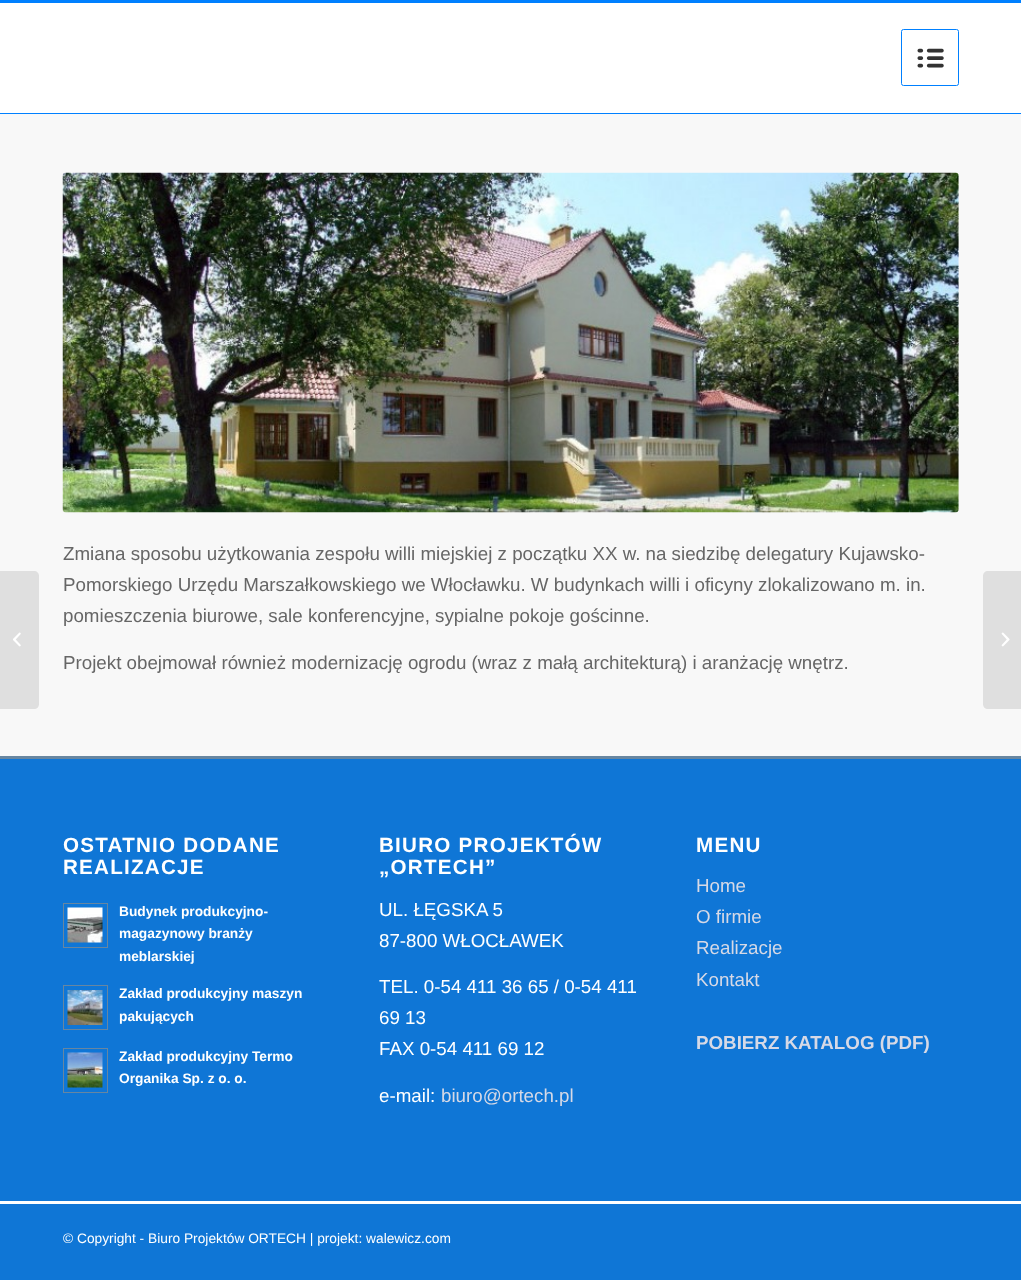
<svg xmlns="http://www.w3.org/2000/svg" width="1021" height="1280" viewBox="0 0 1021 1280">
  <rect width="100%" height="100%" fill="#0f76d6"/>
  <rect x="0" y="0" width="1021" height="3" fill="#0080ff"/>
  <rect x="0" y="113" width="1021" height="1" fill="#0080ff"/>
  <rect x="0" y="3" width="1021" height="110" fill="#ffffff"/>
  <rect x="901.5" y="29.5" width="57" height="56" rx="2" fill="none" stroke="#0080ff"/>
  <image x="917" y="48" width="27" height="20" href="img1.png"/>
  <rect x="0" y="114" width="1021" height="642" fill="#f8f8f8"/>
  <path d="M0 571H34C37 571 39 573 39 576V704C39 707 37 709 34 709H0Z" fill="#dfdfdf"/>
  <image x="13" y="632" width="8" height="15" href="img2.png"/>
  <image x="62" y="172" width="897" height="341" href="img3.png"/>
  <text x="63" y="560" font-family="Liberation Sans" font-size="18.75" fill="#666666">Zmiana sposobu użytkowania zespołu willi miejskiej z początku XX w. na siedzibę delegatury Kujawsko-</text>
  <text x="63" y="591" font-family="Liberation Sans" font-size="18.75" fill="#666666">Pomorskiego Urzędu Marszałkowskiego we Włocławku. W budynkach willi i oficyny zlokalizowano m. in.</text>
  <text x="63" y="622" font-family="Liberation Sans" font-size="18.75" fill="#666666">pomieszczenia biurowe, sale konferencyjne, sypialne pokoje gościnne.</text>
  <text x="63" y="669" font-family="Liberation Sans" font-size="18.75" fill="#666666">Projekt obejmował również modernizację ogrodu (wraz z małą architekturą) i aranżację wnętrz.</text>
  <rect x="0" y="756" width="1021" height="3" fill="#6786a1"/>
  <text x="63" y="852" font-family="Liberation Sans" font-size="20.6" font-weight="bold" letter-spacing="1.25" fill="#ffffff">OSTATNIO DODANE</text>
  <text x="63" y="874" font-family="Liberation Sans" font-size="20.6" font-weight="bold" letter-spacing="1.25" fill="#ffffff">REALIZACJE</text>
  <rect x="63.5" y="903.5" width="44" height="44" fill="none" stroke="#6786a1"/>
  <image x="67" y="907" width="36" height="36" href="img4.png"/>
  <text x="119" y="916" font-family="Liberation Sans" font-size="13.75" font-weight="bold" fill="#ffffff">Budynek produkcyjno-</text>
  <text x="119" y="938" font-family="Liberation Sans" font-size="13.75" font-weight="bold" fill="#ffffff">magazynowy branży</text>
  <text x="119" y="961" font-family="Liberation Sans" font-size="13.75" font-weight="bold" fill="#ffffff">meblarskiej</text>
  <rect x="63.5" y="985.5" width="44" height="44" fill="none" stroke="#6786a1"/>
  <image x="67" y="990" width="36" height="35" href="img5.png"/>
  <text x="119" y="998" font-family="Liberation Sans" font-size="13.75" font-weight="bold" fill="#ffffff">Zakład produkcyjny maszyn</text>
  <text x="119" y="1021" font-family="Liberation Sans" font-size="13.75" font-weight="bold" fill="#ffffff">pakujących</text>
  <rect x="63.5" y="1048.5" width="44" height="44" fill="none" stroke="#6786a1"/>
  <image x="67" y="1052" width="36" height="36" href="img6.png"/>
  <text x="119" y="1061" font-family="Liberation Sans" font-size="13.75" font-weight="bold" fill="#ffffff">Zakład produkcyjny Termo</text>
  <text x="119" y="1083" font-family="Liberation Sans" font-size="13.75" font-weight="bold" fill="#ffffff">Organika Sp. z o. o.</text>
  <text x="379" y="852" font-family="Liberation Sans" font-size="20.6" font-weight="bold" letter-spacing="1.25" fill="#ffffff">BIURO PROJEKTÓW</text>
  <text x="379" y="874" font-family="Liberation Sans" font-size="20.6" font-weight="bold" letter-spacing="1.25" fill="#ffffff">„ORTECH”</text>
  <text x="379" y="916" font-family="Liberation Sans" font-size="18.75" fill="#ffffff">UL. ŁĘGSKA 5</text>
  <text x="379" y="947" font-family="Liberation Sans" font-size="18.75" fill="#ffffff">87-800 WŁOCŁAWEK</text>
  <text x="379" y="993" font-family="Liberation Sans" font-size="18.75" fill="#ffffff">TEL. 0-54 411 36 65 / 0-54 411</text>
  <text x="379" y="1024" font-family="Liberation Sans" font-size="18.75" fill="#ffffff">69 13</text>
  <text x="379" y="1055" font-family="Liberation Sans" font-size="18.75" fill="#ffffff">FAX 0-54 411 69 12</text>
  <text x="379" y="1102" font-family="Liberation Sans" font-size="18.75" fill="#ffffff">e-mail:</text>
  <text x="441" y="1102" font-family="Liberation Sans" font-size="18.75" fill="#d6d9e6">biuro@ortech.pl</text>
  <text x="696" y="852" font-family="Liberation Sans" font-size="20.6" font-weight="bold" letter-spacing="1.25" fill="#ffffff">MENU</text>
  <text x="696" y="892" font-family="Liberation Sans" font-size="18.75" fill="#d6d9e6">Home</text>
  <text x="696" y="923" font-family="Liberation Sans" font-size="18.75" fill="#d6d9e6">O firmie</text>
  <text x="696" y="954" font-family="Liberation Sans" font-size="18.75" fill="#d6d9e6">Realizacje</text>
  <text x="696" y="986" font-family="Liberation Sans" font-size="18.75" fill="#d6d9e6">Kontakt</text>
  <text x="696" y="1049" font-family="Liberation Sans" font-size="18.75" font-weight="bold" fill="#d6d9e6">POBIERZ KATALOG (PDF)</text>
  <rect x="0" y="1201" width="1021" height="3" fill="#ffffff"/>
  <text x="63" y="1243" font-family="Liberation Sans" font-size="13.75" fill="#ffffff">© Copyright - Biuro Projektów ORTECH | projekt: walewicz.com</text>
  <path d="M988 571H1021V709H988C985 709 983 707 983 704V576C983 573 985 571 988 571Z" fill="#dfdfdf"/>
  <image x="1001" y="632" width="9" height="15" href="img7.png"/>
</svg>
